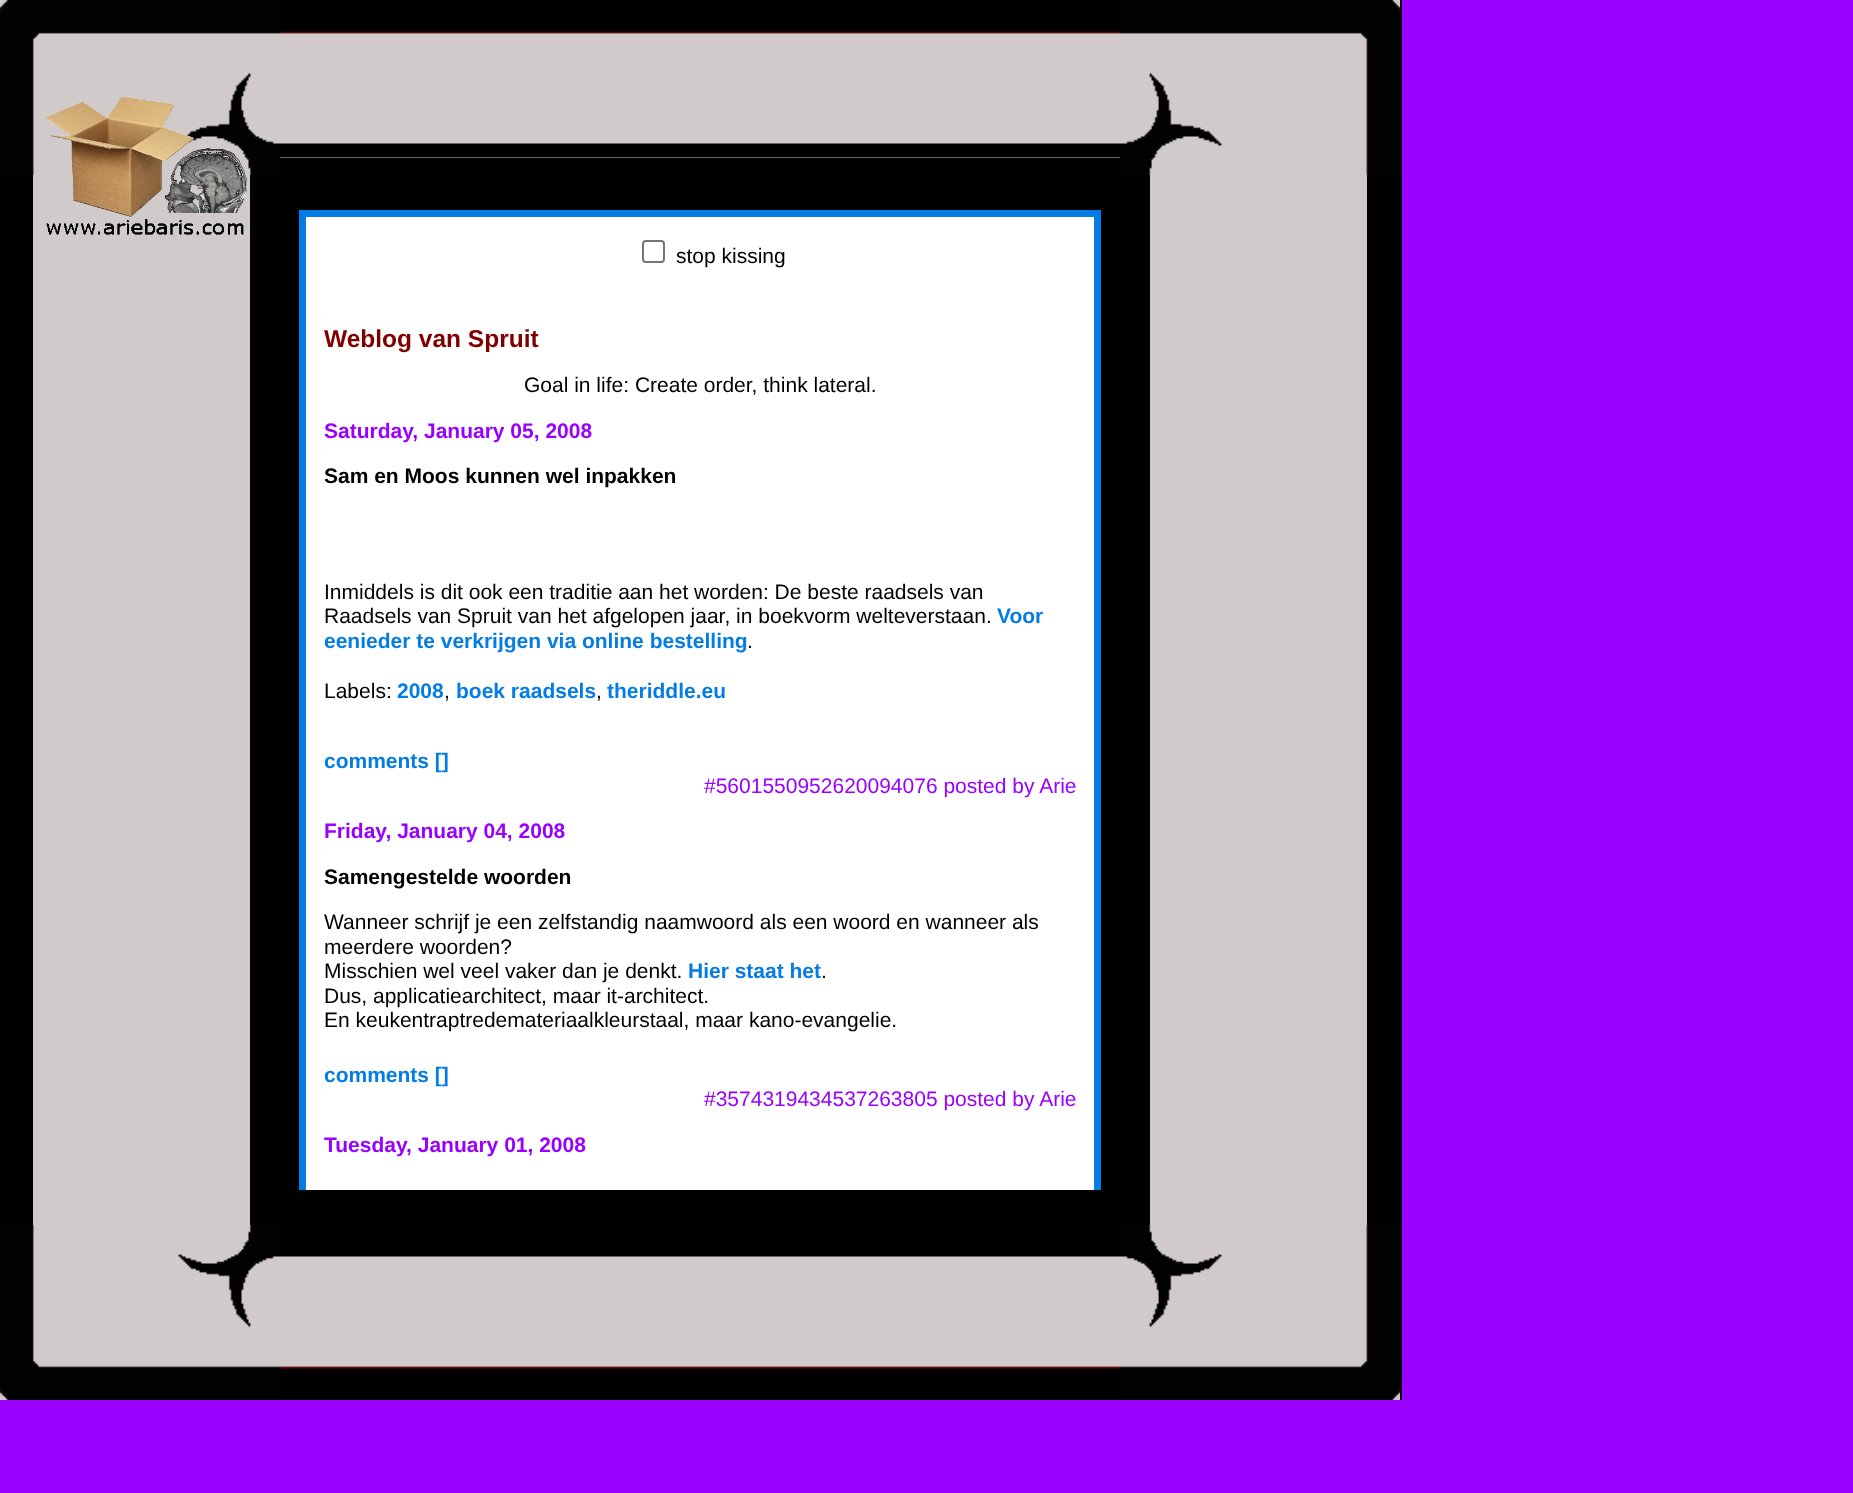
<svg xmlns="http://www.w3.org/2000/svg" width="1853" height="1493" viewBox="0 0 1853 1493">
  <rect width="100%" height="100%" fill="#9900ff"/>
  <rect x="250" y="158" width="870" height="1067" fill="#000000"/>
  <image x="0" y="0" width="280" height="175" href="img1.png"/>
  <rect x="280" y="157" width="840" height="1" fill="#d0caca"/>
  <image x="280" y="0" width="840" height="158" href="img2.png"/>
  <rect x="1150" y="175" width="217" height="1050" fill="#d0caca"/>
  <rect x="1120" y="175" width="30" height="1050" fill="#000000"/>
  <rect x="1367" y="0" width="35" height="1400" fill="#000000"/>
  <rect x="33" y="175" width="217" height="1050" fill="#d0caca"/>
  <image x="46" y="97" width="201" height="138" href="img3.png"/>
  <image x="1120" y="0" width="280" height="175" href="img4.png"/>
  <rect x="0" y="175" width="33" height="1050" fill="#000000"/>
  <rect x="299" y="210" width="802" height="980" fill="#047ce5"/>
  <rect x="306" y="217" width="788" height="973" fill="#ffffff"/>
  <rect x="643" y="241" width="21" height="21" rx="3" fill="none" stroke="#767676" stroke-width="2"/>
  <text x="676" y="263" font-family="Liberation Sans" font-size="21" fill="#000000">stop kissing</text>
  <text x="324" y="347" font-family="Liberation Sans" font-size="24.5" font-weight="bold" fill="#800000">Weblog van Spruit</text>
  <text x="524" y="392" font-family="Liberation Sans" font-size="21" fill="#000000">Goal in life: Create order, think lateral.</text>
  <text x="324" y="438" font-family="Liberation Sans" font-size="21" font-weight="bold" fill="#9900ff">Saturday, January 05, 2008</text>
  <text x="324" y="483" font-family="Liberation Sans" font-size="21" font-weight="bold" fill="#000000">Sam en Moos kunnen wel inpakken</text>
  <text x="324" y="599" font-family="Liberation Sans" font-size="21" fill="#000000">Inmiddels is dit ook een traditie aan het worden: De beste raadsels van</text>
  <text x="324" y="623" font-family="Liberation Sans" font-size="21" fill="#000000">Raadsels van Spruit van het afgelopen jaar, in boekvorm welteverstaan.</text>
  <text x="997" y="623" font-family="Liberation Sans" font-size="21" font-weight="bold" fill="#047ce5">Voor</text>
  <text x="324" y="648" font-family="Liberation Sans" font-size="21" font-weight="bold" fill="#047ce5">eenieder te verkrijgen via online bestelling</text>
  <text x="747" y="648" font-family="Liberation Sans" font-size="21" fill="#000000">.</text>
  <text x="324" y="698" font-family="Liberation Sans" font-size="21" fill="#000000">Labels:</text>
  <text x="397" y="698" font-family="Liberation Sans" font-size="21" font-weight="bold" fill="#047ce5">2008</text>
  <text x="444" y="698" font-family="Liberation Sans" font-size="21" fill="#000000">,</text>
  <text x="456" y="698" font-family="Liberation Sans" font-size="21" font-weight="bold" fill="#047ce5">boek raadsels</text>
  <text x="596" y="698" font-family="Liberation Sans" font-size="21" fill="#000000">,</text>
  <text x="607" y="698" font-family="Liberation Sans" font-size="21" font-weight="bold" fill="#047ce5">theriddle.eu</text>
  <text x="324" y="768" font-family="Liberation Sans" font-size="21" font-weight="bold" fill="#047ce5">comments []</text>
  <text x="704" y="793" font-family="Liberation Sans" font-size="21" fill="#9900ff">#5601550952620094076 posted by Arie</text>
  <text x="324" y="838" font-family="Liberation Sans" font-size="21" font-weight="bold" fill="#9900ff">Friday, January 04, 2008</text>
  <text x="324" y="884" font-family="Liberation Sans" font-size="21" font-weight="bold" fill="#000000">Samengestelde woorden</text>
  <text x="324" y="929" font-family="Liberation Sans" font-size="21" fill="#000000">Wanneer schrijf je een zelfstandig naamwoord als een woord en wanneer als</text>
  <text x="324" y="954" font-family="Liberation Sans" font-size="21" fill="#000000">meerdere woorden?</text>
  <text x="324" y="978" font-family="Liberation Sans" font-size="21" fill="#000000">Misschien wel veel vaker dan je denkt.</text>
  <text x="688" y="978" font-family="Liberation Sans" font-size="21" font-weight="bold" fill="#047ce5">Hier staat het</text>
  <text x="821" y="978" font-family="Liberation Sans" font-size="21" fill="#000000">.</text>
  <text x="324" y="1003" font-family="Liberation Sans" font-size="21" fill="#000000">Dus, applicatiearchitect, maar it-architect.</text>
  <text x="324" y="1027" font-family="Liberation Sans" font-size="21" fill="#000000">En keukentraptredemateriaalkleurstaal, maar kano-evangelie.</text>
  <text x="324" y="1082" font-family="Liberation Sans" font-size="21" font-weight="bold" fill="#047ce5">comments []</text>
  <text x="704" y="1106" font-family="Liberation Sans" font-size="21" fill="#9900ff">#3574319434537263805 posted by Arie</text>
  <text x="324" y="1152" font-family="Liberation Sans" font-size="21" font-weight="bold" fill="#9900ff">Tuesday, January 01, 2008</text>
  <image x="0" y="1225" width="280" height="175" href="img5.png"/>
  <image x="280" y="1225" width="840" height="175" href="img6.png"/>
  <image x="1120" y="1225" width="280" height="175" href="img7.png"/>
</svg>
